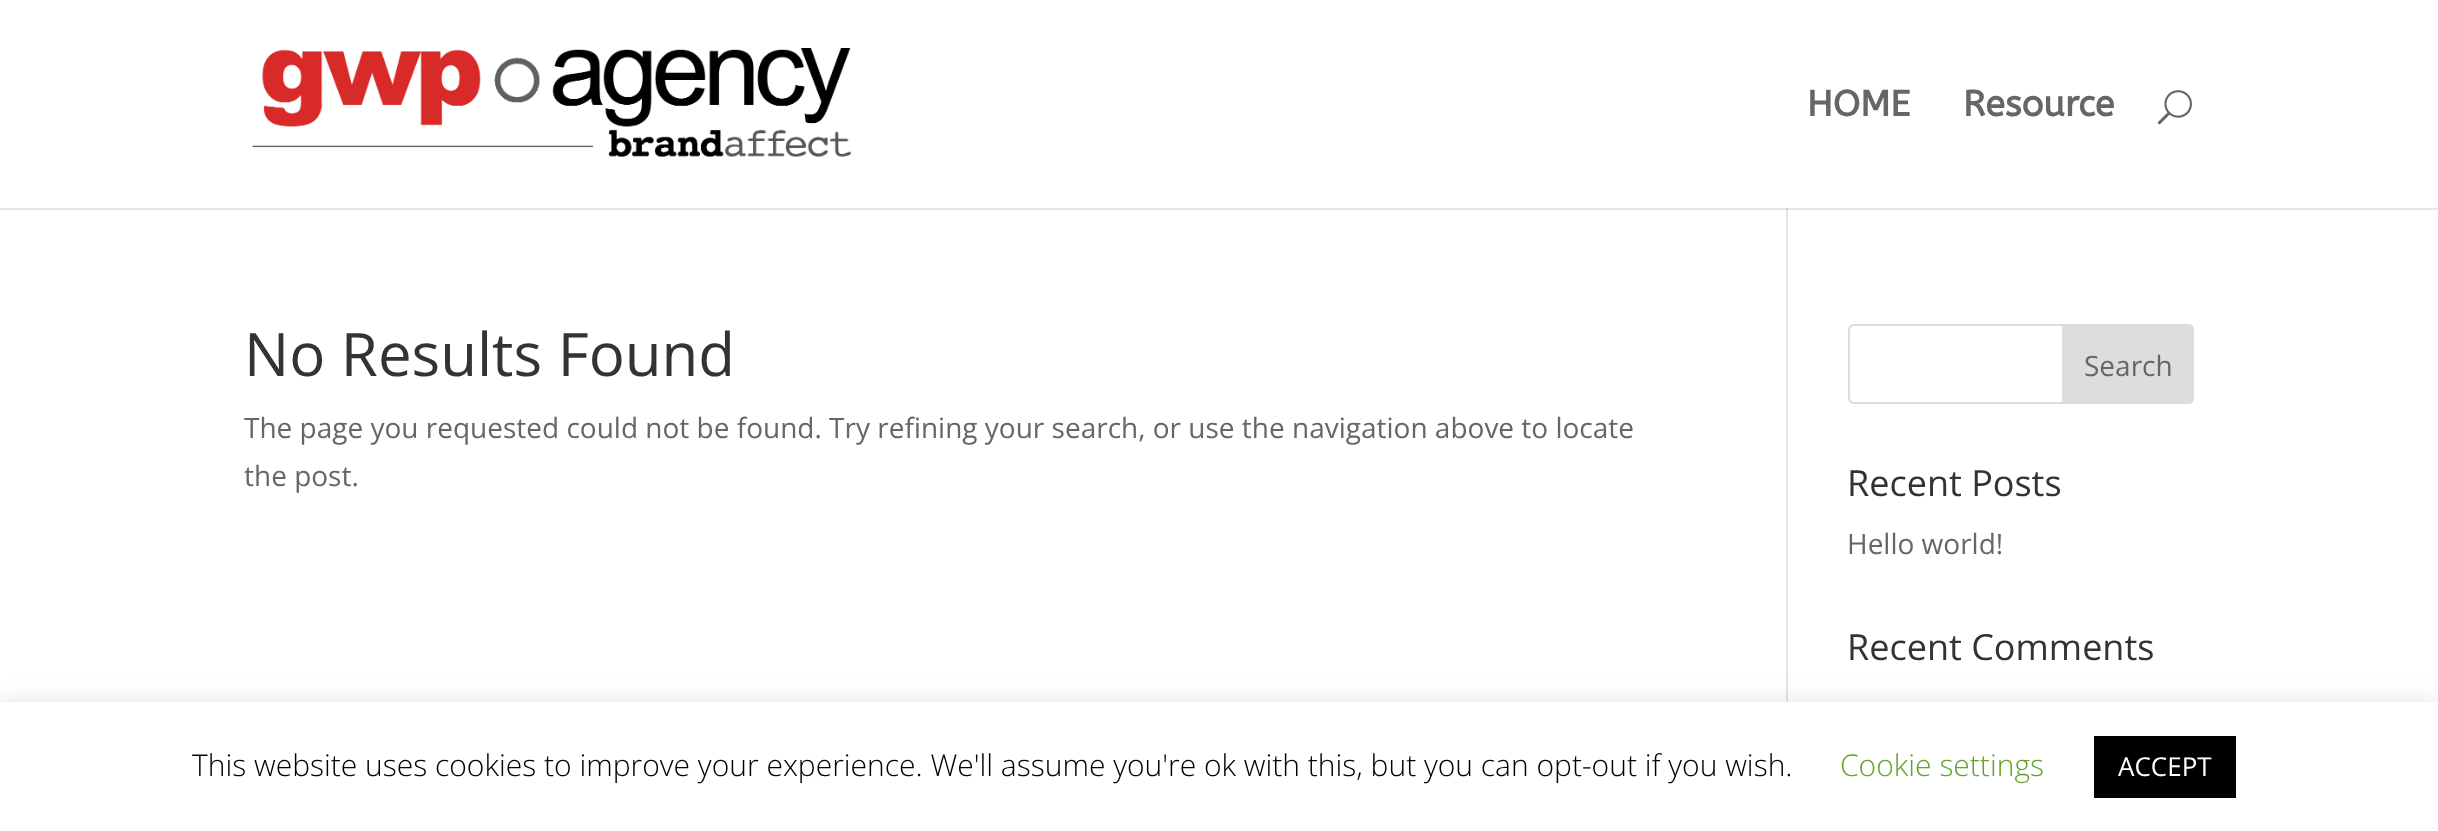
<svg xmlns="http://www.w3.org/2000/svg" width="2438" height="831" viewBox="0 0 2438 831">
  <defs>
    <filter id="blur1" x="-50%" y="-200%" width="200%" height="500%"><feGaussianBlur stdDeviation="10"/></filter>
  </defs>
  <rect width="100%" height="100%" fill="#ffffff"/>
  <rect x="0" y="208" width="2438" height="2" fill="#e6e6e6"/>
  <image x="252" y="48" width="599" height="109" href="img1.png"/>
  <text x="1807" y="116" font-family="ABeeZee" font-size="36" font-weight="bold" fill="#666666">HOME</text>
  <text x="1963" y="116" font-family="ABeeZee" font-size="36" font-weight="bold" fill="#666666">Resource</text>
  <image x="2157" y="90" width="35" height="35" href="img2.png"/>
  <rect x="1786" y="208" width="2" height="494" fill="#e2e2e2"/>
  <rect x="1786" y="208" width="2" height="2" fill="#cbcbcb"/>
  <text x="244" y="376" font-family="Open Sans" font-size="60" fill="#333333">No Results Found</text>
  <text x="244" y="438" font-family="Open Sans" font-size="28" fill="#666666">The page you requested could not be found. Try refining your search, or use the navigation above to locate</text>
  <text x="244" y="486" font-family="Open Sans" font-size="28" fill="#666666">the post.</text>
  <rect x="1849" y="325" width="344" height="78" rx="5" fill="none" stroke="#dddddd" stroke-width="2"/>
  <path d="M2063 325H2188C2191 325 2193 327 2193 330V398C2193 401 2191 403 2188 403H2063Z" fill="#dddddd" stroke="#dddddd" stroke-width="2"/>
  <text x="2084" y="376" font-family="Open Sans" font-size="28" fill="#666666">Search</text>
  <text x="1847" y="496" font-family="Open Sans" font-size="36" fill="#333333">Recent Posts</text>
  <text x="1847" y="554" font-family="Open Sans" font-size="28" fill="#666666">Hello world!</text>
  <text x="1847" y="660" font-family="Open Sans" font-size="36" fill="#333333">Recent Comments</text>
  <rect x="0" y="700" width="2438" height="130" fill="#acabab" fill-opacity="0.3" filter="url(#blur1)"/>
  <rect x="0" y="702" width="2438" height="129" fill="#ffffff"/>
  <text x="192" y="776" font-family="Open Sans" font-size="30" font-weight="300" fill="#000000">This website uses cookies to improve your experience. We'll assume you're ok with this, but you can opt-out if you wish.</text>
  <text x="1840" y="776" font-family="Open Sans" font-size="30" font-weight="300" fill="#62a329">Cookie settings</text>
  <rect x="2094" y="736" width="142" height="62" fill="#000000"/>
  <text x="2118" y="776" font-family="Open Sans" font-size="26" fill="#ffffff">ACCEPT</text>
</svg>
